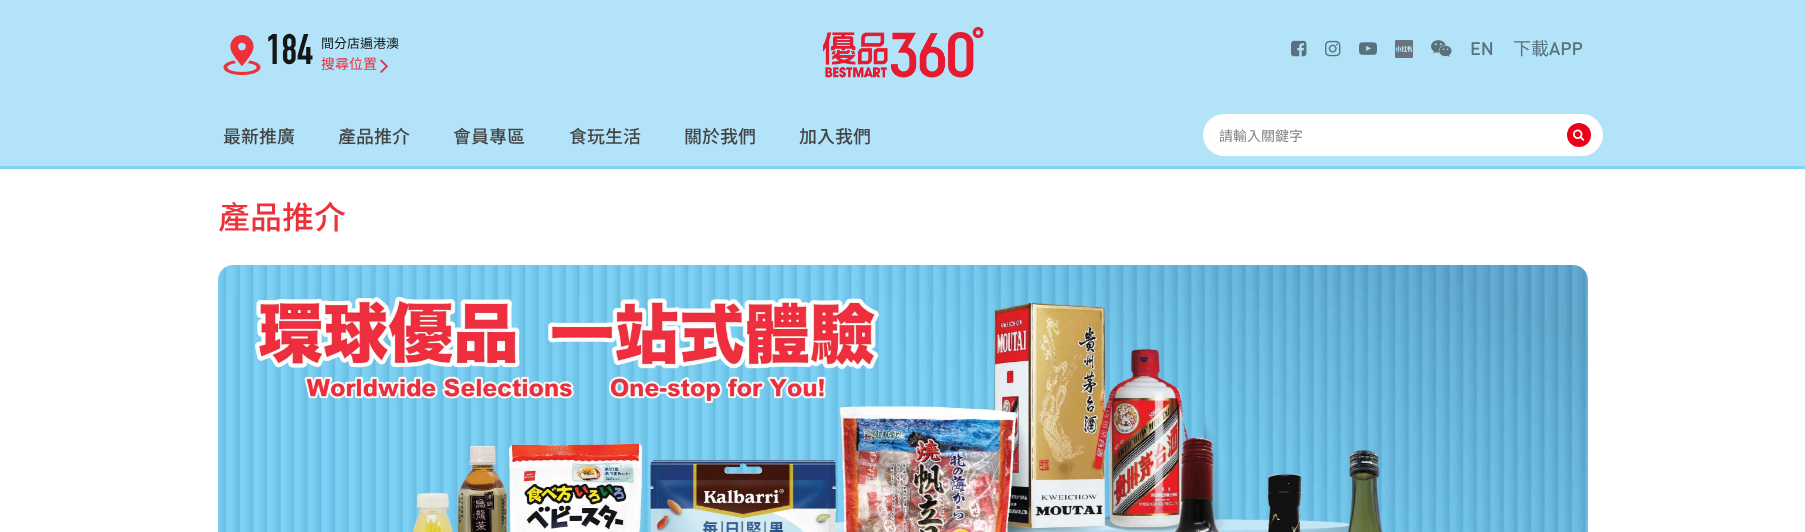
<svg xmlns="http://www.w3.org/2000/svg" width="1805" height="532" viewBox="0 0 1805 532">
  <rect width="100%" height="100%" fill="#ffffff"/>
  <rect x="0" y="0" width="1805" height="166" fill="#b2e3f9"/>
  <rect x="0" y="166" width="1805" height="3" fill="#7fd3f7"/>
  <image x="223" y="35" width="38" height="40" href="img1.png"/>
  <text x="266" y="64" font-family="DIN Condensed" font-size="42" font-weight="bold" fill="#161616">184</text>
  <text x="321" y="48" font-family="Noto Sans TC" font-size="13" fill="#161616">間分店遍港澳</text>
  <text x="321" y="69" font-family="Noto Sans TC" font-size="14" fill="#ee303a">搜尋位置</text>
  <image x="380" y="59" width="8" height="14" href="img2.png"/>
  <image x="823" y="27" width="161" height="51" href="img3.png"/>
  <image x="1291" y="40" width="16" height="17" href="img4.png"/>
  <image x="1325" y="40" width="16" height="17" href="img5.png"/>
  <image x="1359" y="42" width="18" height="13" href="img6.png"/>
  <image x="1395" y="40" width="18" height="18" href="img7.png"/>
  <image x="1431" y="40" width="21" height="17" href="img8.png"/>
  <text x="1470" y="55" font-family="DIN" font-size="18" font-weight="500" fill="#59727d">EN</text>
  <text x="1513" y="55" font-family="Noto Sans TC" font-size="18" fill="#59727d">下載</text>
  <text x="1549" y="55" font-family="DIN" font-size="18" font-weight="500" fill="#59727d">APP</text>
  <text x="223" y="143" font-family="Noto Sans TC" font-size="18" font-weight="500" fill="#444444">最新推廣</text>
  <text x="338" y="143" font-family="Noto Sans TC" font-size="18" font-weight="500" fill="#444444">產品推介</text>
  <text x="453" y="143" font-family="Noto Sans TC" font-size="18" font-weight="500" fill="#444444">會員專區</text>
  <text x="569" y="143" font-family="Noto Sans TC" font-size="18" font-weight="500" fill="#444444">食玩生活</text>
  <text x="684" y="143" font-family="Noto Sans TC" font-size="18" font-weight="500" fill="#444444">關於我們</text>
  <text x="799" y="143" font-family="Noto Sans TC" font-size="18" font-weight="500" fill="#444444">加入我們</text>
  <rect x="1203" y="114" width="400" height="42" rx="21" fill="#ffffff"/>
  <text x="1219" y="141" font-family="Noto Sans TC" font-size="14" fill="#808080">請輸入關鍵字</text>
  <circle cx="1579" cy="135" r="12" fill="#ee0018"/>
  <image x="1573" y="129" width="12" height="12" href="img9.png"/>
  <text x="218" y="229" font-family="Noto Sans TC" font-size="32" font-weight="500" fill="#ee303a">產品推介</text>
  <image x="218" y="265" width="1370" height="267" href="img10.png"/>
</svg>
